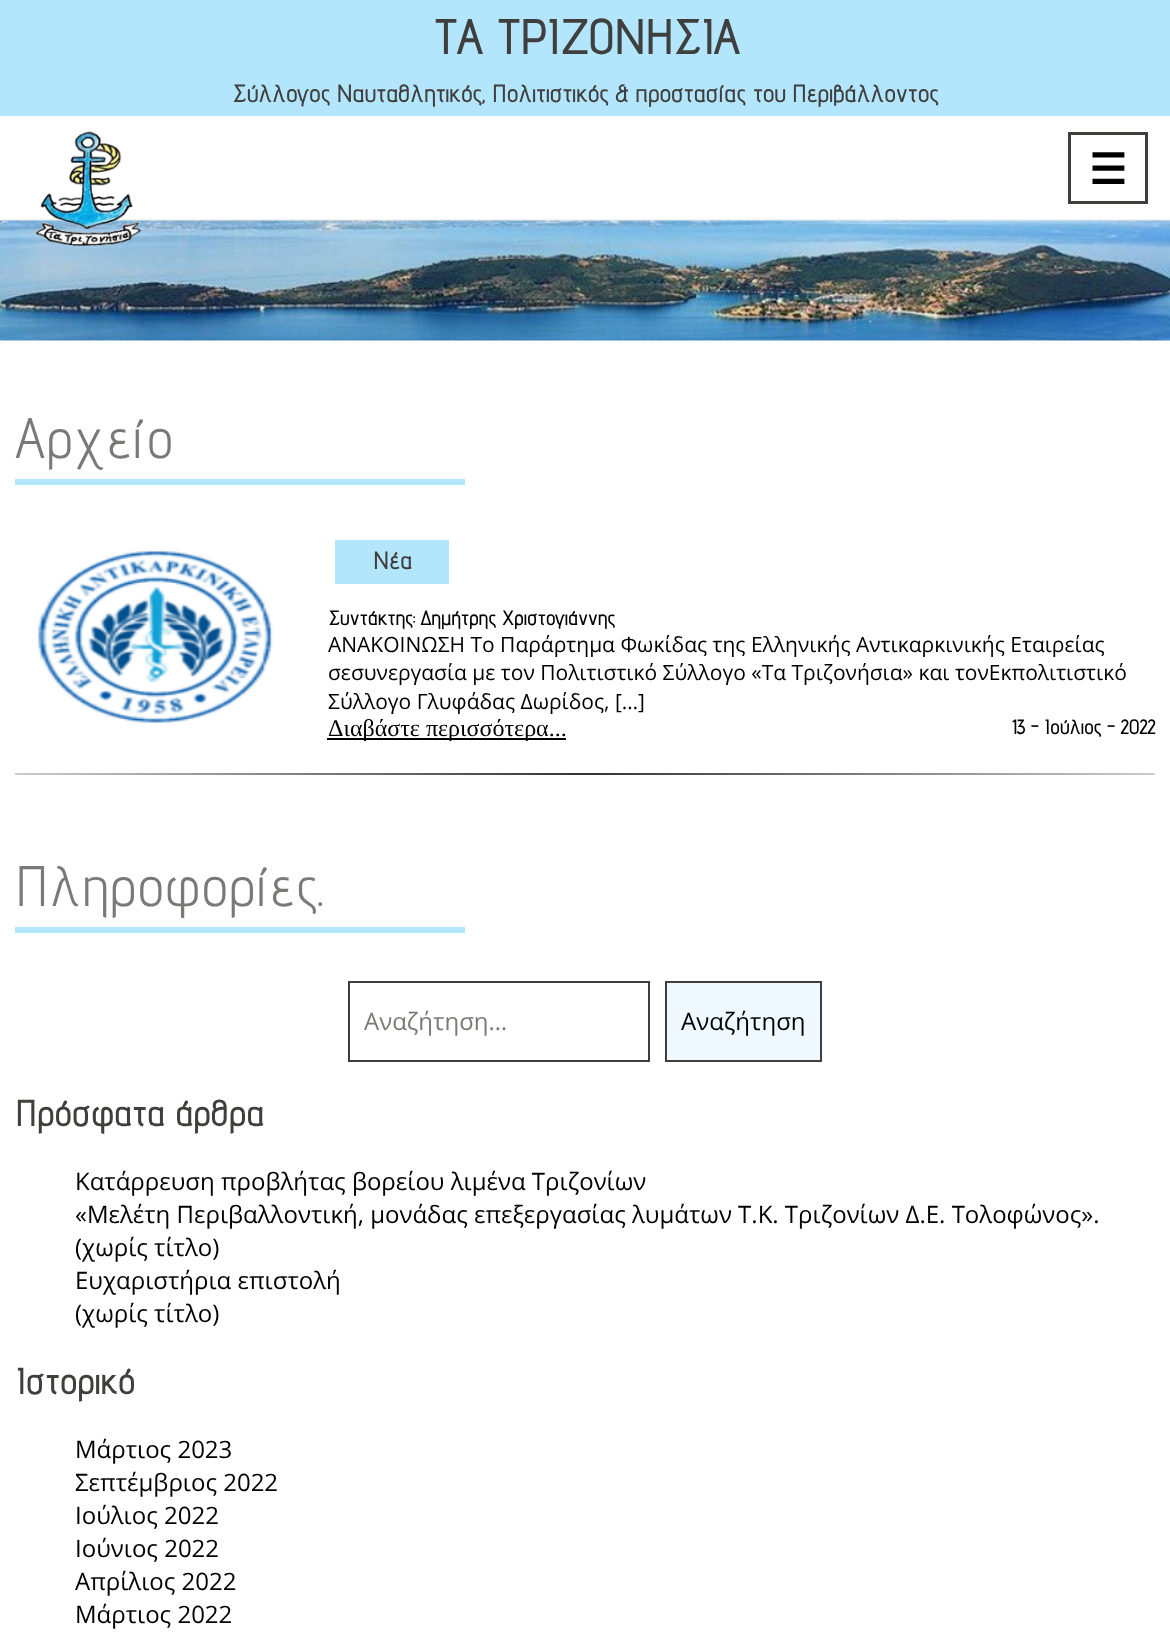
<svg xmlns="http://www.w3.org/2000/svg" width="1170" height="1637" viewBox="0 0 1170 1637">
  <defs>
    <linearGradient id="g1" gradientUnits="userSpaceOnUse" x1="15" y1="773" x2="1155" y2="773"><stop offset="0" stop-color="#cccccc"/><stop offset="0.5" stop-color="#333333"/><stop offset="1" stop-color="#cccccc"/></linearGradient>
  </defs>
  <rect width="100%" height="100%" fill="#ffffff"/>
  <rect x="0" y="0" width="1170" height="116" fill="#b3e5fc"/>
  <text x="432" y="54" font-family="Advent Pro" font-size="48" font-weight="bold" fill="#3f3f3d">ΤΑ ΤΡΙΖΟΝΗΣΙΑ</text>
  <text x="232" y="102" font-family="Advent Pro" font-size="24" font-weight="bold" fill="#3f3f3d">Σύλλογος Ναυταθλητικός, Πολιτιστικός &amp; προστασίας του Περιβάλλοντος</text>
  <rect x="0" y="219" width="1170" height="2" fill="#f2f2f1"/>
  <image x="0" y="220" width="1170" height="121" href="img2.png"/>
  <image x="35" y="131" width="107" height="115" href="img1.png"/>
  <rect x="1069.5" y="133.5" width="77" height="69" fill="none" stroke="#3f3f3d" stroke-width="3"/>
  <text x="1089" y="184" font-family="DejaVu Sans" font-size="42" font-weight="bold" fill="#000000">☰</text>
  <text x="15" y="458" font-family="Advent Pro" font-size="57" fill="#797975">Αρχείο</text>
  <rect x="15" y="479" width="450" height="6" fill="#b3e5fc"/>
  <image x="37" y="550" width="236" height="174" href="img3.png"/>
  <rect x="335" y="540" width="114" height="44" fill="#b3e5fc"/>
  <text x="373" y="569" font-family="Advent Pro" font-size="24" font-weight="bold" fill="#3f3f3d">Νέα</text>
  <text x="328" y="625" font-family="Advent Pro" font-size="19.9" font-weight="bold" fill="#000000">Συντάκτης: Δημήτρης Χριστογιάννης</text>
  <text x="328" y="652" font-family="Open Sans" font-size="21" fill="#000000">ΑΝΑΚΟΙΝΩΣΗ Το Παράρτημα Φωκίδας της Ελληνικής Αντικαρκινικής Εταιρείας</text>
  <text x="328" y="680" font-family="Open Sans" font-size="21" fill="#000000">σεσυνεργασία με τον Πολιτιστικό Σύλλογο «Τα Τριζονήσια» και τονΕκπολιτιστικό</text>
  <text x="328" y="709" font-family="Open Sans" font-size="21" fill="#000000">Σύλλογο Γλυφάδας Δωρίδος, […]</text>
  <rect x="327" y="738" width="239" height="2" fill="#000000"/>
  <text x="328" y="736" font-family="Liberation Serif" font-size="24" fill="#000000">Διαβάστε περισσότερα...</text>
  <text x="1012" y="734" font-family="Advent Pro" font-size="19.9" font-weight="bold" fill="#000000">13 - Ιούλιος - 2022</text>
  <rect x="15" y="773" width="1140" height="2" fill="url(#g1)"/>
  <text x="15" y="906" font-family="Advent Pro" font-size="57" fill="#797975">Πληροφορίες.</text>
  <rect x="15" y="927" width="450" height="6" fill="#b3e5fc"/>
  <rect x="349" y="982" width="300" height="79" fill="none" stroke="#3f3f3d" stroke-width="2"/>
  <text x="364" y="1030" font-family="Open Sans" font-size="24" fill="#797975">Αναζήτηση…</text>
  <rect x="666" y="982" width="155" height="79" fill="#eff9ff" stroke="#3f3f3d" stroke-width="2"/>
  <text x="681" y="1030" font-family="Open Sans" font-size="24" fill="#000000">Αναζήτηση</text>
  <text x="15" y="1126" font-family="Advent Pro" font-size="36" font-weight="bold" fill="#3f3f3d">Πρόσφατα άρθρα</text>
  <text x="75" y="1190" font-family="Open Sans" font-size="24" fill="#000000">Κατάρρευση προβλήτας βoρείου λιμένα Τριζονίων</text>
  <text x="75" y="1223" font-family="Open Sans" font-size="24" fill="#000000">«Μελέτη Περιβαλλοντική, μονάδας επεξεργασίας λυμάτων Τ.Κ. Τριζονίων Δ.Ε. Τολοφώνος».</text>
  <text x="75" y="1256" font-family="Open Sans" font-size="24" fill="#000000">(χωρίς τίτλο)</text>
  <text x="75" y="1289" font-family="Open Sans" font-size="24" fill="#000000">Ευχαριστήρια επιστολή</text>
  <text x="75" y="1322" font-family="Open Sans" font-size="24" fill="#000000">(χωρίς τίτλο)</text>
  <text x="15" y="1394" font-family="Advent Pro" font-size="36" font-weight="bold" fill="#3f3f3d">Ιστορικό</text>
  <text x="75" y="1458" font-family="Open Sans" font-size="24" fill="#000000">Μάρτιος 2023</text>
  <text x="75" y="1491" font-family="Open Sans" font-size="24" fill="#000000">Σεπτέμβριος 2022</text>
  <text x="75" y="1524" font-family="Open Sans" font-size="24" fill="#000000">Ιούλιος 2022</text>
  <text x="75" y="1557" font-family="Open Sans" font-size="24" fill="#000000">Ιούνιος 2022</text>
  <text x="75" y="1590" font-family="Open Sans" font-size="24" fill="#000000">Απρίλιος 2022</text>
  <text x="75" y="1623" font-family="Open Sans" font-size="24" fill="#000000">Μάρτιος 2022</text>
</svg>
